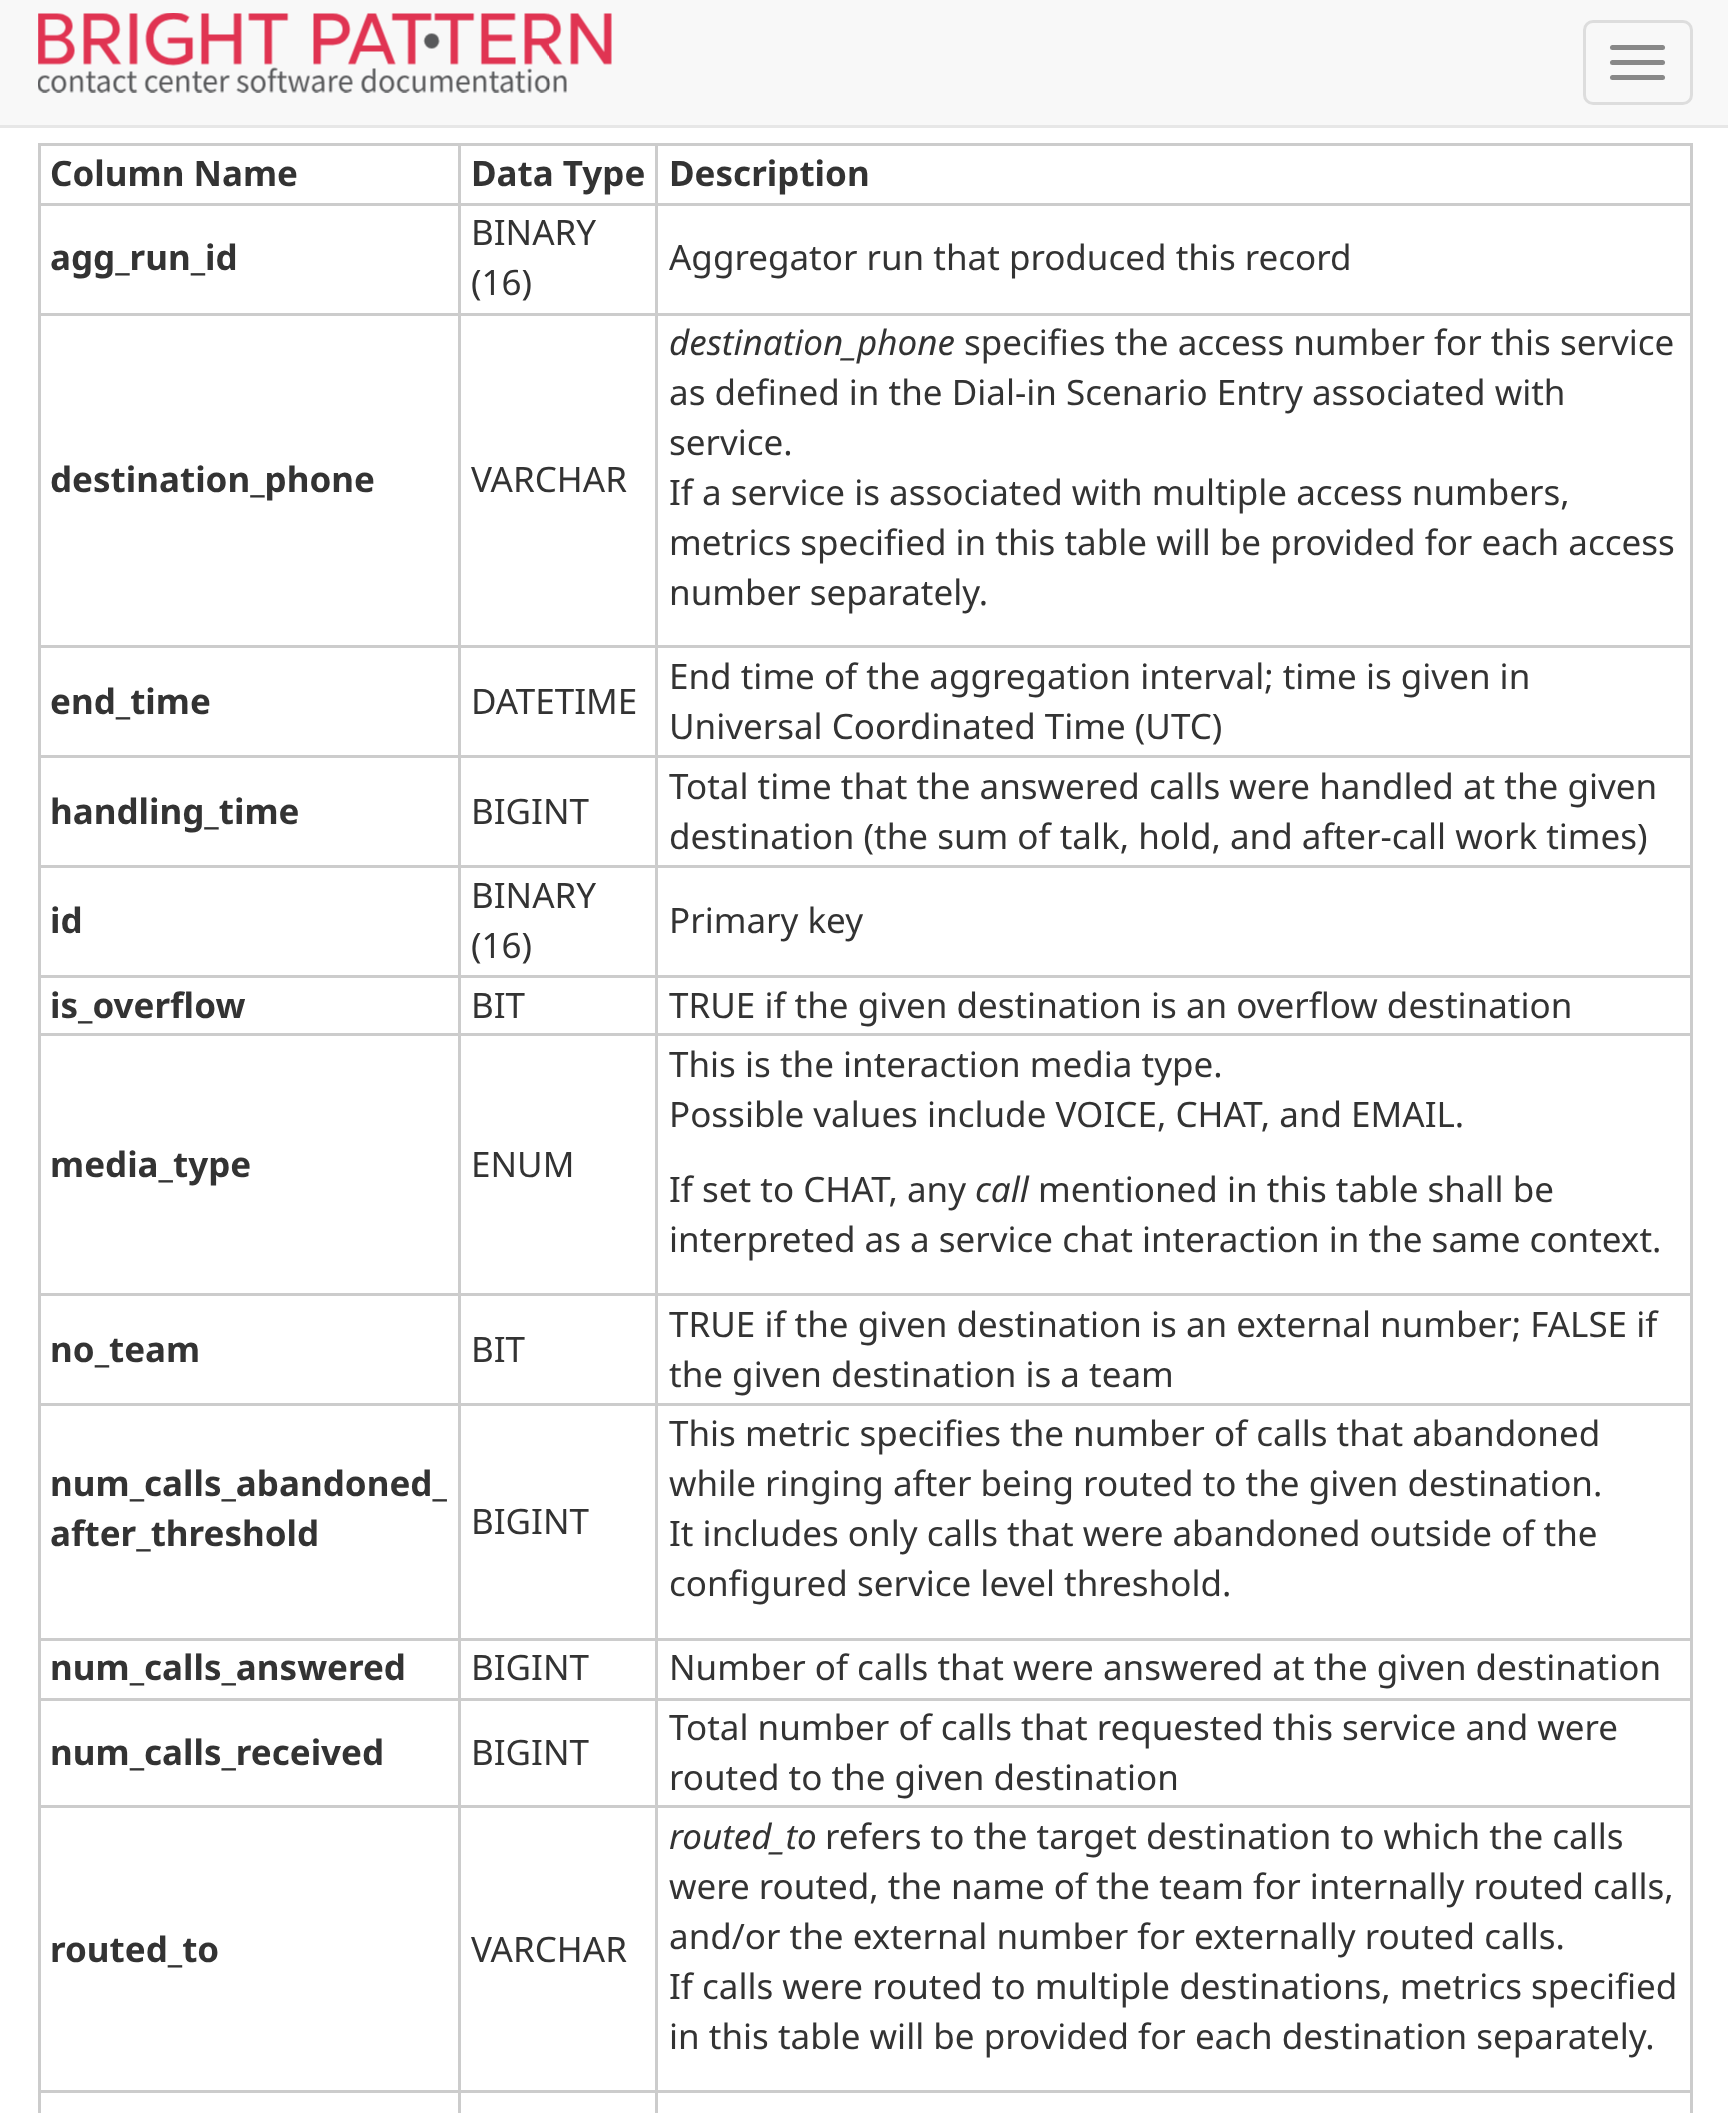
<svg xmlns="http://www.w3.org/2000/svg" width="1728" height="2113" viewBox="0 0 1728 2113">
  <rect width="100%" height="100%" fill="#ffffff"/>
  <rect x="0" y="0" width="1728" height="125" fill="#f8f8f8"/>
  <rect x="0" y="125" width="1728" height="3" fill="#e7e7e7"/>
  <image x="38" y="13" width="574" height="80" href="img1.png"/>
  <rect x="1584.5" y="21.5" width="107" height="82" rx="8.5" fill="none" stroke="#dddddd" stroke-width="3"/>
  <rect x="1610" y="45" width="55" height="5" rx="2.5" fill="#888888"/>
  <rect x="1610" y="60" width="55" height="5" rx="2.5" fill="#888888"/>
  <rect x="1610" y="75" width="55" height="5" rx="2.5" fill="#888888"/>
  <rect x="38" y="143" width="1655" height="3" fill="#cccccc"/>
  <rect x="1690" y="143" width="3" height="1970" fill="#cccccc"/>
  <rect x="38" y="143" width="3" height="1970" fill="#cccccc"/>
  <text x="50" y="186" font-family="Noto Sans" font-size="35" font-weight="bold" fill="#333333">Column Name</text>
  <rect x="655" y="203" width="1038" height="3" fill="#cccccc"/>
  <rect x="655" y="313" width="1038" height="3" fill="#cccccc"/>
  <rect x="655" y="645" width="1038" height="3" fill="#cccccc"/>
  <rect x="655" y="755" width="1038" height="3" fill="#cccccc"/>
  <rect x="655" y="865" width="1038" height="3" fill="#cccccc"/>
  <rect x="655" y="975" width="1038" height="3" fill="#cccccc"/>
  <rect x="655" y="1033" width="1038" height="3" fill="#cccccc"/>
  <rect x="655" y="1293" width="1038" height="3" fill="#cccccc"/>
  <rect x="655" y="1403" width="1038" height="3" fill="#cccccc"/>
  <rect x="655" y="1638" width="1038" height="3" fill="#cccccc"/>
  <rect x="655" y="1698" width="1038" height="3" fill="#cccccc"/>
  <rect x="655" y="1805" width="1038" height="3" fill="#cccccc"/>
  <rect x="655" y="2090" width="1038" height="3" fill="#cccccc"/>
  <rect x="655" y="2090" width="3" height="23" fill="#cccccc"/>
  <rect x="458" y="2090" width="200" height="3" fill="#cccccc"/>
  <rect x="655" y="1805" width="3" height="288" fill="#cccccc"/>
  <rect x="458" y="1805" width="200" height="3" fill="#cccccc"/>
  <rect x="655" y="1698" width="3" height="110" fill="#cccccc"/>
  <rect x="458" y="1698" width="200" height="3" fill="#cccccc"/>
  <rect x="655" y="1638" width="3" height="62" fill="#cccccc"/>
  <rect x="458" y="1638" width="200" height="3" fill="#cccccc"/>
  <rect x="655" y="1403" width="3" height="237" fill="#cccccc"/>
  <rect x="458" y="1403" width="200" height="3" fill="#cccccc"/>
  <rect x="655" y="1293" width="3" height="112" fill="#cccccc"/>
  <rect x="458" y="1293" width="200" height="3" fill="#cccccc"/>
  <rect x="655" y="1033" width="3" height="262" fill="#cccccc"/>
  <rect x="458" y="1033" width="200" height="3" fill="#cccccc"/>
  <rect x="655" y="975" width="3" height="60" fill="#cccccc"/>
  <rect x="458" y="975" width="200" height="3" fill="#cccccc"/>
  <rect x="655" y="865" width="3" height="113" fill="#cccccc"/>
  <rect x="458" y="865" width="200" height="3" fill="#cccccc"/>
  <rect x="655" y="755" width="3" height="113" fill="#cccccc"/>
  <rect x="458" y="755" width="200" height="3" fill="#cccccc"/>
  <rect x="655" y="645" width="3" height="113" fill="#cccccc"/>
  <rect x="458" y="645" width="200" height="3" fill="#cccccc"/>
  <rect x="655" y="313" width="3" height="335" fill="#cccccc"/>
  <rect x="458" y="313" width="200" height="3" fill="#cccccc"/>
  <rect x="655" y="203" width="3" height="112" fill="#cccccc"/>
  <rect x="458" y="203" width="200" height="3" fill="#cccccc"/>
  <rect x="458" y="2090" width="3" height="23" fill="#cccccc"/>
  <rect x="38" y="2090" width="422" height="3" fill="#cccccc"/>
  <rect x="458" y="1805" width="3" height="288" fill="#cccccc"/>
  <rect x="38" y="1805" width="422" height="3" fill="#cccccc"/>
  <rect x="458" y="1698" width="3" height="110" fill="#cccccc"/>
  <rect x="38" y="1698" width="422" height="3" fill="#cccccc"/>
  <rect x="458" y="1638" width="3" height="62" fill="#cccccc"/>
  <rect x="38" y="1638" width="422" height="3" fill="#cccccc"/>
  <rect x="458" y="1403" width="3" height="237" fill="#cccccc"/>
  <rect x="38" y="1403" width="422" height="3" fill="#cccccc"/>
  <rect x="458" y="1293" width="3" height="112" fill="#cccccc"/>
  <rect x="38" y="1293" width="422" height="3" fill="#cccccc"/>
  <rect x="458" y="1033" width="3" height="262" fill="#cccccc"/>
  <rect x="38" y="1033" width="422" height="3" fill="#cccccc"/>
  <rect x="458" y="975" width="3" height="60" fill="#cccccc"/>
  <rect x="38" y="975" width="422" height="3" fill="#cccccc"/>
  <rect x="458" y="865" width="3" height="113" fill="#cccccc"/>
  <rect x="38" y="865" width="422" height="3" fill="#cccccc"/>
  <rect x="458" y="755" width="3" height="113" fill="#cccccc"/>
  <rect x="38" y="755" width="422" height="3" fill="#cccccc"/>
  <rect x="458" y="645" width="3" height="113" fill="#cccccc"/>
  <rect x="38" y="645" width="422" height="3" fill="#cccccc"/>
  <rect x="458" y="313" width="3" height="335" fill="#cccccc"/>
  <rect x="38" y="313" width="422" height="3" fill="#cccccc"/>
  <rect x="458" y="203" width="3" height="112" fill="#cccccc"/>
  <rect x="38" y="203" width="422" height="3" fill="#cccccc"/>
  <rect x="458" y="143" width="3" height="62" fill="#cccccc"/>
  <text x="471" y="186" font-family="Noto Sans" font-size="35" font-weight="bold" fill="#333333">Data Type</text>
  <rect x="655" y="143" width="3" height="62" fill="#cccccc"/>
  <text x="669" y="186" font-family="Noto Sans" font-size="35" font-weight="bold" fill="#333333">Description</text>
  <text x="50" y="270" font-family="Noto Sans" font-size="35" font-weight="bold" fill="#333333">agg_run_id</text>
  <text x="471" y="245" font-family="Noto Sans" font-size="35" fill="#333333">BINARY</text>
  <text x="471" y="295" font-family="Noto Sans" font-size="35" fill="#333333">(16)</text>
  <text x="669" y="270" font-family="Noto Sans" font-size="35" fill="#333333">Aggregator run that produced this record</text>
  <text x="50" y="492" font-family="Noto Sans" font-size="35" font-weight="bold" fill="#333333">destination_phone</text>
  <text x="471" y="492" font-family="Noto Sans" font-size="35" fill="#333333">VARCHAR</text>
  <text x="669" y="355" font-family="Noto Sans" font-size="35" font-style="italic" fill="#333333">destination_phone</text>
  <text x="964" y="355" font-family="Noto Sans" font-size="35" fill="#333333">specifies the access number for this service</text>
  <text x="669" y="405" font-family="Noto Sans" font-size="35" fill="#333333">as defined in the Dial-in Scenario Entry associated with</text>
  <text x="669" y="455" font-family="Noto Sans" font-size="35" fill="#333333">service.</text>
  <text x="669" y="505" font-family="Noto Sans" font-size="35" fill="#333333">If a service is associated with multiple access numbers,</text>
  <text x="669" y="555" font-family="Noto Sans" font-size="35" fill="#333333">metrics specified in this table will be provided for each access</text>
  <text x="669" y="605" font-family="Noto Sans" font-size="35" fill="#333333">number separately.</text>
  <text x="50" y="714" font-family="Noto Sans" font-size="35" font-weight="bold" fill="#333333">end_time</text>
  <text x="471" y="714" font-family="Noto Sans" font-size="35" fill="#333333">DATETIME</text>
  <text x="669" y="689" font-family="Noto Sans" font-size="35" fill="#333333">End time of the aggregation interval; time is given in</text>
  <text x="669" y="739" font-family="Noto Sans" font-size="35" fill="#333333">Universal Coordinated Time (UTC)</text>
  <text x="50" y="824" font-family="Noto Sans" font-size="35" font-weight="bold" fill="#333333">handling_time</text>
  <text x="471" y="824" font-family="Noto Sans" font-size="35" fill="#333333">BIGINT</text>
  <text x="669" y="799" font-family="Noto Sans" font-size="35" fill="#333333">Total time that the answered calls were handled at the given</text>
  <text x="669" y="849" font-family="Noto Sans" font-size="35" fill="#333333">destination (the sum of talk, hold, and after-call work times)</text>
  <text x="50" y="933" font-family="Noto Sans" font-size="35" font-weight="bold" fill="#333333">id</text>
  <text x="471" y="908" font-family="Noto Sans" font-size="35" fill="#333333">BINARY</text>
  <text x="471" y="958" font-family="Noto Sans" font-size="35" fill="#333333">(16)</text>
  <text x="669" y="933" font-family="Noto Sans" font-size="35" fill="#333333">Primary key</text>
  <text x="50" y="1018" font-family="Noto Sans" font-size="35" font-weight="bold" fill="#333333">is_overflow</text>
  <text x="471" y="1018" font-family="Noto Sans" font-size="35" fill="#333333">BIT</text>
  <text x="669" y="1018" font-family="Noto Sans" font-size="35" fill="#333333">TRUE if the given destination is an overflow destination</text>
  <text x="50" y="1177" font-family="Noto Sans" font-size="35" font-weight="bold" fill="#333333">media_type</text>
  <text x="471" y="1177" font-family="Noto Sans" font-size="35" fill="#333333">ENUM</text>
  <text x="669" y="1077" font-family="Noto Sans" font-size="35" fill="#333333">This is the interaction media type.</text>
  <text x="669" y="1127" font-family="Noto Sans" font-size="35" fill="#333333">Possible values include VOICE, CHAT, and EMAIL.</text>
  <text x="669" y="1202" font-family="Noto Sans" font-size="35" fill="#333333">If set to CHAT, any</text>
  <text x="975" y="1202" font-family="Noto Sans" font-size="35" font-style="italic" fill="#333333">call</text>
  <text x="1038" y="1202" font-family="Noto Sans" font-size="35" fill="#333333">mentioned in this table shall be</text>
  <text x="669" y="1252" font-family="Noto Sans" font-size="35" fill="#333333">interpreted as a service chat interaction in the same context.</text>
  <text x="50" y="1362" font-family="Noto Sans" font-size="35" font-weight="bold" fill="#333333">no_team</text>
  <text x="471" y="1362" font-family="Noto Sans" font-size="35" fill="#333333">BIT</text>
  <text x="669" y="1337" font-family="Noto Sans" font-size="35" fill="#333333">TRUE if the given destination is an external number; FALSE if</text>
  <text x="669" y="1387" font-family="Noto Sans" font-size="35" fill="#333333">the given destination is a team</text>
  <text x="50" y="1496" font-family="Noto Sans" font-size="35" font-weight="bold" fill="#333333">num_calls_abandoned_</text>
  <text x="50" y="1546" font-family="Noto Sans" font-size="35" font-weight="bold" fill="#333333">after_threshold</text>
  <text x="471" y="1534" font-family="Noto Sans" font-size="35" fill="#333333">BIGINT</text>
  <text x="669" y="1446" font-family="Noto Sans" font-size="35" fill="#333333">This metric specifies the number of calls that abandoned</text>
  <text x="669" y="1496" font-family="Noto Sans" font-size="35" fill="#333333">while ringing after being routed to the given destination.</text>
  <text x="669" y="1546" font-family="Noto Sans" font-size="35" fill="#333333">It includes only calls that were abandoned outside of the</text>
  <text x="669" y="1596" font-family="Noto Sans" font-size="35" fill="#333333">configured service level threshold.</text>
  <text x="50" y="1680" font-family="Noto Sans" font-size="35" font-weight="bold" fill="#333333">num_calls_answered</text>
  <text x="471" y="1680" font-family="Noto Sans" font-size="35" fill="#333333">BIGINT</text>
  <text x="669" y="1680" font-family="Noto Sans" font-size="35" fill="#333333">Number of calls that were answered at the given destination</text>
  <text x="50" y="1765" font-family="Noto Sans" font-size="35" font-weight="bold" fill="#333333">num_calls_received</text>
  <text x="471" y="1765" font-family="Noto Sans" font-size="35" fill="#333333">BIGINT</text>
  <text x="669" y="1740" font-family="Noto Sans" font-size="35" fill="#333333">Total number of calls that requested this service and were</text>
  <text x="669" y="1790" font-family="Noto Sans" font-size="35" fill="#333333">routed to the given destination</text>
  <text x="50" y="1962" font-family="Noto Sans" font-size="35" font-weight="bold" fill="#333333">routed_to</text>
  <text x="471" y="1962" font-family="Noto Sans" font-size="35" fill="#333333">VARCHAR</text>
  <text x="669" y="1849" font-family="Noto Sans" font-size="35" font-style="italic" fill="#333333">routed_to</text>
  <text x="825" y="1849" font-family="Noto Sans" font-size="35" fill="#333333">refers to the target destination to which the calls</text>
  <text x="669" y="1899" font-family="Noto Sans" font-size="35" fill="#333333">were routed, the name of the team for internally routed calls,</text>
  <text x="669" y="1949" font-family="Noto Sans" font-size="35" fill="#333333">and/or the external number for externally routed calls.</text>
  <text x="669" y="1999" font-family="Noto Sans" font-size="35" fill="#333333">If calls were routed to multiple destinations, metrics specified</text>
  <text x="669" y="2049" font-family="Noto Sans" font-size="35" fill="#333333">in this table will be provided for each destination separately.</text>
</svg>
